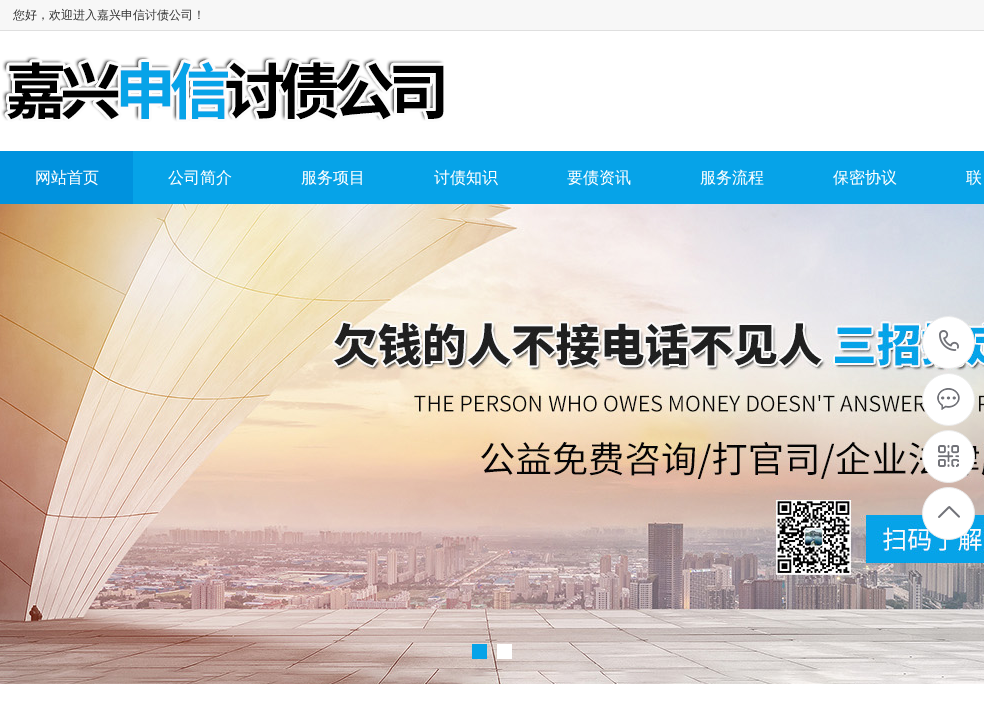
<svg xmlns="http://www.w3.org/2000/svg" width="984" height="708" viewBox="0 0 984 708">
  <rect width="100%" height="100%" fill="#ffffff"/>
  <rect x="0" y="0" width="984" height="30" fill="#f7f7f7"/>
  <rect x="0" y="30" width="984" height="1" fill="#dfdfdf"/>
  <text x="13" y="19" font-family="WenQuanYi Zen Hei" font-size="12" font-weight="500" fill="#333333">您好，欢迎进入嘉兴申信讨债公司！</text>
  <image x="1" y="56" width="443" height="66" href="img1.png"/>
  <rect x="133" y="151" width="851" height="53" fill="#06a3e8"/>
  <rect x="0" y="151" width="133" height="53" fill="#0092de"/>
  <text x="35" y="183" font-family="WenQuanYi Zen Hei" font-size="16" font-weight="500" fill="#ffffff">网站首页</text>
  <text x="168" y="183" font-family="WenQuanYi Zen Hei" font-size="16" font-weight="500" fill="#ffffff">公司简介</text>
  <text x="301" y="183" font-family="WenQuanYi Zen Hei" font-size="16" font-weight="500" fill="#ffffff">服务项目</text>
  <text x="434" y="183" font-family="WenQuanYi Zen Hei" font-size="16" font-weight="500" fill="#ffffff">讨债知识</text>
  <text x="567" y="183" font-family="WenQuanYi Zen Hei" font-size="16" font-weight="500" fill="#ffffff">要债资讯</text>
  <text x="700" y="183" font-family="WenQuanYi Zen Hei" font-size="16" font-weight="500" fill="#ffffff">服务流程</text>
  <text x="833" y="183" font-family="WenQuanYi Zen Hei" font-size="16" font-weight="500" fill="#ffffff">保密协议</text>
  <text x="966" y="183" font-family="WenQuanYi Zen Hei" font-size="16" font-weight="500" fill="#ffffff">联</text>
  <image x="0" y="204" width="984" height="480" href="img2.png"/>
  <rect x="472" y="644" width="15" height="15" fill="#06a3e8"/>
  <rect x="497" y="644" width="15" height="15" fill="#ffffff"/>
  <circle cx="948.5" cy="342.5" r="26" fill="#ffffff" stroke="#ebebeb"/>
  <image x="939" y="330" width="20" height="21" href="img3.png"/>
  <circle cx="948.5" cy="399.5" r="26" fill="#ffffff" stroke="#ebebeb"/>
  <image x="937" y="388" width="23" height="22" href="img4.png"/>
  <circle cx="948.5" cy="456.5" r="26" fill="#ffffff" stroke="#ebebeb"/>
  <image x="938" y="445" width="21" height="22" href="img5.png"/>
  <circle cx="948.5" cy="513.5" r="26" fill="#ffffff" stroke="#ebebeb"/>
  <image x="938" y="506" width="22" height="12" href="img6.png"/>
</svg>
